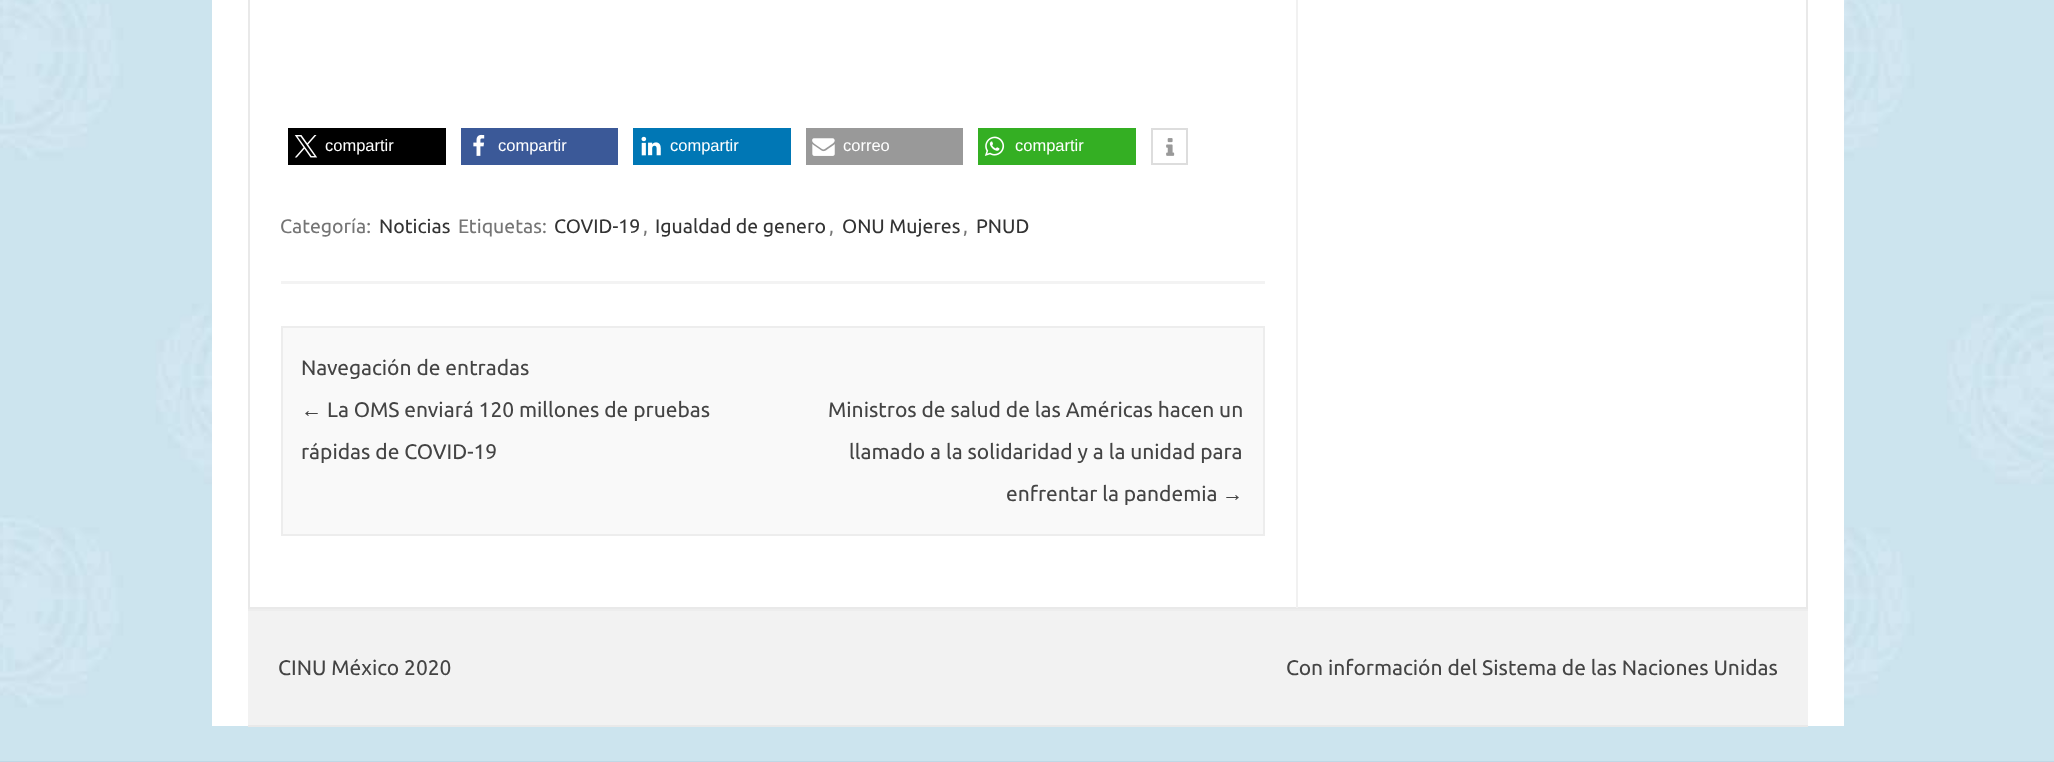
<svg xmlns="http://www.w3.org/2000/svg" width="2054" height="762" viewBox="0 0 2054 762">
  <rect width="100%" height="100%" fill="#b5cbdd"/>
  <image x="0" y="0" width="2054" height="762" href="img1.png"/>
  <rect x="212" y="0" width="1632" height="726" fill="#ffffff"/>
  <rect x="249" y="-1" width="1558" height="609" fill="none" stroke="#e9e9e9" stroke-width="2"/>
  <rect x="1296" y="0" width="2" height="608" fill="#f1f1f1"/>
  <rect x="281" y="281" width="984" height="3" fill="#f3f3f3"/>
  <rect x="288" y="128" width="158" height="37" fill="#000000"/>
  <image x="294" y="135" width="24" height="23" href="img2.png"/>
  <text x="325" y="151" font-family="Liberation Sans" font-size="16.5" fill="#ffffff">compartir</text>
  <rect x="461" y="128" width="157" height="37" fill="#3b5998"/>
  <image x="473" y="134" width="12" height="22" href="img3.png"/>
  <text x="498" y="151" font-family="Liberation Sans" font-size="16.5" fill="#ffffff">compartir</text>
  <rect x="633" y="128" width="158" height="37" fill="#0077b5"/>
  <image x="641" y="136" width="20" height="20" href="img4.png"/>
  <text x="670" y="151" font-family="Liberation Sans" font-size="16.5" fill="#ffffff">compartir</text>
  <rect x="806" y="128" width="157" height="37" fill="#999999"/>
  <image x="812" y="138" width="23" height="18" href="img5.png"/>
  <text x="843" y="151" font-family="Liberation Sans" font-size="16.5" fill="#ffffff">correo</text>
  <rect x="978" y="128" width="158" height="37" fill="#34af23"/>
  <image x="984" y="136" width="21" height="20" href="img6.png"/>
  <text x="1015" y="151" font-family="Liberation Sans" font-size="16.5" fill="#ffffff">compartir</text>
  <rect x="1152" y="129" width="35" height="35" fill="none" stroke="#dddddd" stroke-width="2"/>
  <image x="1166" y="138" width="9" height="18" href="img7.png"/>
  <text x="280" y="233" font-family="Ubuntu" font-size="19.5" fill="#757575">Categoría:</text>
  <text x="379" y="233" font-family="Ubuntu" font-size="19.5" fill="#333333">Noticias</text>
  <text x="458" y="233" font-family="Ubuntu" font-size="19.5" fill="#757575">Etiquetas:</text>
  <text x="554" y="233" font-family="Ubuntu" font-size="19.5" fill="#333333">COVID-19</text>
  <text x="643" y="233" font-family="Ubuntu" font-size="19.5" fill="#757575">,</text>
  <text x="655" y="233" font-family="Ubuntu" font-size="19.5" fill="#333333">Igualdad de genero</text>
  <text x="829" y="233" font-family="Ubuntu" font-size="19.5" fill="#757575">,</text>
  <text x="842" y="233" font-family="Ubuntu" font-size="19.5" fill="#333333">ONU Mujeres</text>
  <text x="963" y="233" font-family="Ubuntu" font-size="19.5" fill="#757575">,</text>
  <text x="976" y="233" font-family="Ubuntu" font-size="19.5" fill="#333333">PNUD</text>
  <rect x="282" y="327" width="982" height="208" fill="#f9f9f9" stroke="#ededed" stroke-width="2"/>
  <text x="301" y="375" font-family="Ubuntu" font-size="21" fill="#444444">Navegación de entradas</text>
  <text x="301" y="417" font-family="Liberation Sans" font-size="21" fill="#444444">←</text>
  <text x="327" y="417" font-family="Ubuntu" font-size="21" fill="#444444">La OMS enviará 120 millones de pruebas</text>
  <text x="301" y="459" font-family="Ubuntu" font-size="21" fill="#444444">rápidas de COVID-19</text>
  <text x="828" y="417" font-family="Ubuntu" font-size="21" fill="#444444">Ministros de salud de las Américas hacen un</text>
  <text x="849" y="459" font-family="Ubuntu" font-size="21" fill="#444444">llamado a la solidaridad y a la unidad para</text>
  <text x="1006" y="501" font-family="Ubuntu" font-size="21" fill="#444444">enfrentar la pandemia</text>
  <text x="1222" y="501" font-family="Liberation Sans" font-size="21" fill="#444444">→</text>
  <rect x="248" y="611" width="1560" height="114" fill="#f2f2f2"/>
  <rect x="248" y="609" width="1560" height="2" fill="#ededed"/>
  <rect x="248" y="725" width="1560" height="2" fill="#e9e9e9"/>
  <text x="278" y="675" font-family="Ubuntu" font-size="21" fill="#444444">CINU México 2020</text>
  <text x="1286" y="675" font-family="Ubuntu" font-size="21" fill="#444444">Con información del Sistema de las Naciones Unidas</text>
</svg>
